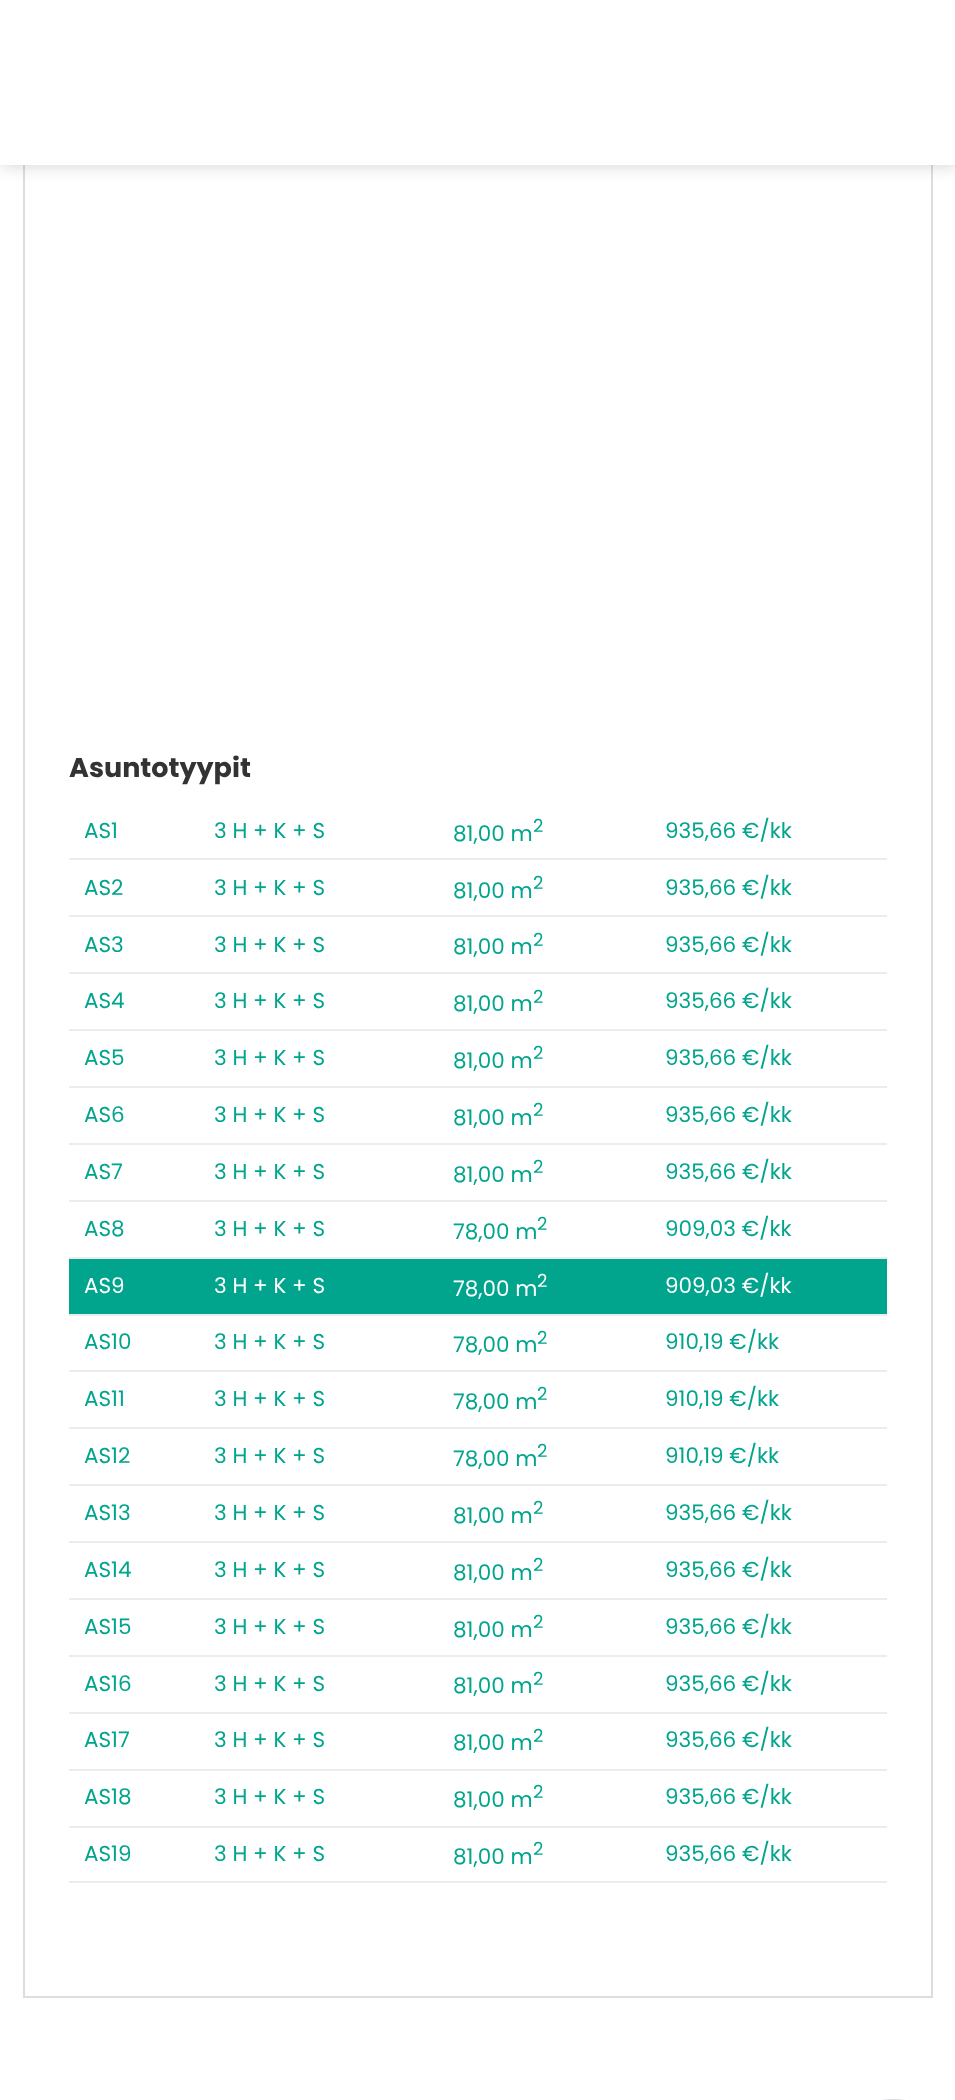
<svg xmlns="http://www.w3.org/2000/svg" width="955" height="2100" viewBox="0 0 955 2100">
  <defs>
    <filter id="blur1" x="-50%" y="-200%" width="200%" height="500%"><feGaussianBlur stdDeviation="7.5"/></filter>
  </defs>
  <rect width="100%" height="100%" fill="#ffffff"/>
  <rect x="24" y="-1" width="908" height="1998" fill="none" stroke="#dddddd" stroke-width="2"/>
  <rect x="2" y="2" width="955" height="165" fill="#000000" fill-opacity="0.15" filter="url(#blur1)"/>
  <rect x="0" y="0" width="955" height="165" fill="#ffffff"/>
  <text x="69" y="777" font-family="Poppins" font-size="27" font-weight="bold" fill="#333333">Asuntotyypit</text>
  <rect x="69" y="858" width="818" height="2" fill="#ececec"/>
  <text x="84" y="838" font-family="Poppins" font-size="21.5" fill="#01a48c">AS1</text>
  <text x="214" y="838" font-family="Poppins" font-size="21.5" fill="#01a48c">3 H + K + S</text>
  <text x="453" y="841" font-family="Poppins" font-size="21.5" fill="#01a48c">81,00 m</text>
  <text x="533" y="832" font-family="Poppins" font-size="18" fill="#01a48c">2</text>
  <text x="665" y="838" font-family="Poppins" font-size="21.5" fill="#01a48c">935,66 €/kk</text>
  <rect x="69" y="915" width="818" height="2" fill="#ececec"/>
  <text x="84" y="895" font-family="Poppins" font-size="21.5" fill="#01a48c">AS2</text>
  <text x="214" y="895" font-family="Poppins" font-size="21.5" fill="#01a48c">3 H + K + S</text>
  <text x="453" y="898" font-family="Poppins" font-size="21.5" fill="#01a48c">81,00 m</text>
  <text x="533" y="889" font-family="Poppins" font-size="18" fill="#01a48c">2</text>
  <text x="665" y="895" font-family="Poppins" font-size="21.5" fill="#01a48c">935,66 €/kk</text>
  <rect x="69" y="972" width="818" height="2" fill="#ececec"/>
  <text x="84" y="952" font-family="Poppins" font-size="21.5" fill="#01a48c">AS3</text>
  <text x="214" y="952" font-family="Poppins" font-size="21.5" fill="#01a48c">3 H + K + S</text>
  <text x="453" y="954" font-family="Poppins" font-size="21.5" fill="#01a48c">81,00 m</text>
  <text x="533" y="946" font-family="Poppins" font-size="18" fill="#01a48c">2</text>
  <text x="665" y="952" font-family="Poppins" font-size="21.5" fill="#01a48c">935,66 €/kk</text>
  <rect x="69" y="1029" width="818" height="2" fill="#ececec"/>
  <text x="84" y="1008" font-family="Poppins" font-size="21.5" fill="#01a48c">AS4</text>
  <text x="214" y="1008" font-family="Poppins" font-size="21.5" fill="#01a48c">3 H + K + S</text>
  <text x="453" y="1011" font-family="Poppins" font-size="21.5" fill="#01a48c">81,00 m</text>
  <text x="533" y="1003" font-family="Poppins" font-size="18" fill="#01a48c">2</text>
  <text x="665" y="1008" font-family="Poppins" font-size="21.5" fill="#01a48c">935,66 €/kk</text>
  <rect x="69" y="1086" width="818" height="2" fill="#ececec"/>
  <text x="84" y="1065" font-family="Poppins" font-size="21.5" fill="#01a48c">AS5</text>
  <text x="214" y="1065" font-family="Poppins" font-size="21.5" fill="#01a48c">3 H + K + S</text>
  <text x="453" y="1068" font-family="Poppins" font-size="21.5" fill="#01a48c">81,00 m</text>
  <text x="533" y="1059" font-family="Poppins" font-size="18" fill="#01a48c">2</text>
  <text x="665" y="1065" font-family="Poppins" font-size="21.5" fill="#01a48c">935,66 €/kk</text>
  <rect x="69" y="1143" width="818" height="2" fill="#ececec"/>
  <text x="84" y="1122" font-family="Poppins" font-size="21.5" fill="#01a48c">AS6</text>
  <text x="214" y="1122" font-family="Poppins" font-size="21.5" fill="#01a48c">3 H + K + S</text>
  <text x="453" y="1125" font-family="Poppins" font-size="21.5" fill="#01a48c">81,00 m</text>
  <text x="533" y="1116" font-family="Poppins" font-size="18" fill="#01a48c">2</text>
  <text x="665" y="1122" font-family="Poppins" font-size="21.5" fill="#01a48c">935,66 €/kk</text>
  <rect x="69" y="1200" width="818" height="2" fill="#ececec"/>
  <text x="84" y="1179" font-family="Poppins" font-size="21.5" fill="#01a48c">AS7</text>
  <text x="214" y="1179" font-family="Poppins" font-size="21.5" fill="#01a48c">3 H + K + S</text>
  <text x="453" y="1182" font-family="Poppins" font-size="21.5" fill="#01a48c">81,00 m</text>
  <text x="533" y="1173" font-family="Poppins" font-size="18" fill="#01a48c">2</text>
  <text x="665" y="1179" font-family="Poppins" font-size="21.5" fill="#01a48c">935,66 €/kk</text>
  <rect x="69" y="1257" width="818" height="2" fill="#ececec"/>
  <text x="84" y="1236" font-family="Poppins" font-size="21.5" fill="#01a48c">AS8</text>
  <text x="214" y="1236" font-family="Poppins" font-size="21.5" fill="#01a48c">3 H + K + S</text>
  <text x="453" y="1239" font-family="Poppins" font-size="21.5" fill="#01a48c">78,00 m</text>
  <text x="537" y="1230" font-family="Poppins" font-size="18" fill="#01a48c">2</text>
  <text x="665" y="1236" font-family="Poppins" font-size="21.5" fill="#01a48c">909,03 €/kk</text>
  <rect x="69" y="1259" width="818" height="55" fill="#01a48c"/>
  <rect x="69" y="1314" width="818" height="2" fill="#ececec"/>
  <text x="84" y="1293" font-family="Poppins" font-size="21.5" fill="#ffffff">AS9</text>
  <text x="214" y="1293" font-family="Poppins" font-size="21.5" fill="#ffffff">3 H + K + S</text>
  <text x="453" y="1296" font-family="Poppins" font-size="21.5" fill="#ffffff">78,00 m</text>
  <text x="537" y="1287" font-family="Poppins" font-size="18" fill="#ffffff">2</text>
  <text x="665" y="1293" font-family="Poppins" font-size="21.5" fill="#ffffff">909,03 €/kk</text>
  <rect x="69" y="1370" width="818" height="2" fill="#ececec"/>
  <text x="84" y="1349" font-family="Poppins" font-size="21.5" fill="#01a48c">AS10</text>
  <text x="214" y="1349" font-family="Poppins" font-size="21.5" fill="#01a48c">3 H + K + S</text>
  <text x="453" y="1352" font-family="Poppins" font-size="21.5" fill="#01a48c">78,00 m</text>
  <text x="537" y="1344" font-family="Poppins" font-size="18" fill="#01a48c">2</text>
  <text x="665" y="1349" font-family="Poppins" font-size="21.5" fill="#01a48c">910,19 €/kk</text>
  <rect x="69" y="1427" width="818" height="2" fill="#ececec"/>
  <text x="84" y="1406" font-family="Poppins" font-size="21.5" fill="#01a48c">AS11</text>
  <text x="214" y="1406" font-family="Poppins" font-size="21.5" fill="#01a48c">3 H + K + S</text>
  <text x="453" y="1409" font-family="Poppins" font-size="21.5" fill="#01a48c">78,00 m</text>
  <text x="537" y="1400" font-family="Poppins" font-size="18" fill="#01a48c">2</text>
  <text x="665" y="1406" font-family="Poppins" font-size="21.5" fill="#01a48c">910,19 €/kk</text>
  <rect x="69" y="1484" width="818" height="2" fill="#ececec"/>
  <text x="84" y="1463" font-family="Poppins" font-size="21.5" fill="#01a48c">AS12</text>
  <text x="214" y="1463" font-family="Poppins" font-size="21.5" fill="#01a48c">3 H + K + S</text>
  <text x="453" y="1466" font-family="Poppins" font-size="21.5" fill="#01a48c">78,00 m</text>
  <text x="537" y="1457" font-family="Poppins" font-size="18" fill="#01a48c">2</text>
  <text x="665" y="1463" font-family="Poppins" font-size="21.5" fill="#01a48c">910,19 €/kk</text>
  <rect x="69" y="1541" width="818" height="2" fill="#ececec"/>
  <text x="84" y="1520" font-family="Poppins" font-size="21.5" fill="#01a48c">AS13</text>
  <text x="214" y="1520" font-family="Poppins" font-size="21.5" fill="#01a48c">3 H + K + S</text>
  <text x="453" y="1523" font-family="Poppins" font-size="21.5" fill="#01a48c">81,00 m</text>
  <text x="533" y="1514" font-family="Poppins" font-size="18" fill="#01a48c">2</text>
  <text x="665" y="1520" font-family="Poppins" font-size="21.5" fill="#01a48c">935,66 €/kk</text>
  <rect x="69" y="1598" width="818" height="2" fill="#ececec"/>
  <text x="84" y="1577" font-family="Poppins" font-size="21.5" fill="#01a48c">AS14</text>
  <text x="214" y="1577" font-family="Poppins" font-size="21.5" fill="#01a48c">3 H + K + S</text>
  <text x="453" y="1580" font-family="Poppins" font-size="21.5" fill="#01a48c">81,00 m</text>
  <text x="533" y="1571" font-family="Poppins" font-size="18" fill="#01a48c">2</text>
  <text x="665" y="1577" font-family="Poppins" font-size="21.5" fill="#01a48c">935,66 €/kk</text>
  <rect x="69" y="1655" width="818" height="2" fill="#ececec"/>
  <text x="84" y="1634" font-family="Poppins" font-size="21.5" fill="#01a48c">AS15</text>
  <text x="214" y="1634" font-family="Poppins" font-size="21.5" fill="#01a48c">3 H + K + S</text>
  <text x="453" y="1637" font-family="Poppins" font-size="21.5" fill="#01a48c">81,00 m</text>
  <text x="533" y="1628" font-family="Poppins" font-size="18" fill="#01a48c">2</text>
  <text x="665" y="1634" font-family="Poppins" font-size="21.5" fill="#01a48c">935,66 €/kk</text>
  <rect x="69" y="1712" width="818" height="2" fill="#ececec"/>
  <text x="84" y="1691" font-family="Poppins" font-size="21.5" fill="#01a48c">AS16</text>
  <text x="214" y="1691" font-family="Poppins" font-size="21.5" fill="#01a48c">3 H + K + S</text>
  <text x="453" y="1693" font-family="Poppins" font-size="21.5" fill="#01a48c">81,00 m</text>
  <text x="533" y="1685" font-family="Poppins" font-size="18" fill="#01a48c">2</text>
  <text x="665" y="1691" font-family="Poppins" font-size="21.5" fill="#01a48c">935,66 €/kk</text>
  <rect x="69" y="1769" width="818" height="2" fill="#ececec"/>
  <text x="84" y="1747" font-family="Poppins" font-size="21.5" fill="#01a48c">AS17</text>
  <text x="214" y="1747" font-family="Poppins" font-size="21.5" fill="#01a48c">3 H + K + S</text>
  <text x="453" y="1750" font-family="Poppins" font-size="21.5" fill="#01a48c">81,00 m</text>
  <text x="533" y="1742" font-family="Poppins" font-size="18" fill="#01a48c">2</text>
  <text x="665" y="1747" font-family="Poppins" font-size="21.5" fill="#01a48c">935,66 €/kk</text>
  <rect x="69" y="1826" width="818" height="2" fill="#ececec"/>
  <text x="84" y="1804" font-family="Poppins" font-size="21.5" fill="#01a48c">AS18</text>
  <text x="214" y="1804" font-family="Poppins" font-size="21.5" fill="#01a48c">3 H + K + S</text>
  <text x="453" y="1807" font-family="Poppins" font-size="21.5" fill="#01a48c">81,00 m</text>
  <text x="533" y="1798" font-family="Poppins" font-size="18" fill="#01a48c">2</text>
  <text x="665" y="1804" font-family="Poppins" font-size="21.5" fill="#01a48c">935,66 €/kk</text>
  <rect x="69" y="1881" width="818" height="2" fill="#ececec"/>
  <text x="84" y="1861" font-family="Poppins" font-size="21.5" fill="#01a48c">AS19</text>
  <text x="214" y="1861" font-family="Poppins" font-size="21.5" fill="#01a48c">3 H + K + S</text>
  <text x="453" y="1864" font-family="Poppins" font-size="21.5" fill="#01a48c">81,00 m</text>
  <text x="533" y="1855" font-family="Poppins" font-size="18" fill="#01a48c">2</text>
  <text x="665" y="1861" font-family="Poppins" font-size="21.5" fill="#01a48c">935,66 €/kk</text>
  <rect x="855" y="2100" width="77" height="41" rx="38.5" fill="none" stroke="#dbdade" stroke-width="2"/>
</svg>
